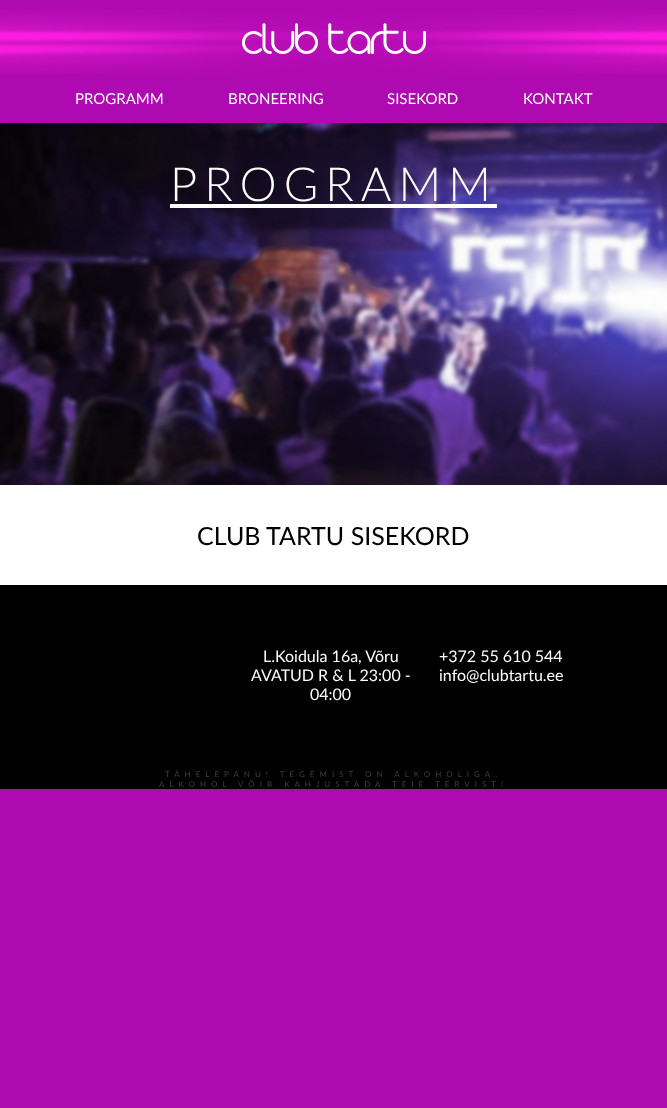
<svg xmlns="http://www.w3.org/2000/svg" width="667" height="1108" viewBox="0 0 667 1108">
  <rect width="100%" height="100%" fill="#af0ab1"/>
  <image x="0" y="10" width="667" height="64" href="img1.png"/>
  <image x="242" y="23" width="184" height="31" href="img2.png"/>
  <text x="75" y="104" font-family="Lato" font-size="15" fill="#ffffff">PROGRAMM</text>
  <text x="228" y="104" font-family="Lato" font-size="15" fill="#ffffff">BRONEERING</text>
  <text x="387" y="104" font-family="Lato" font-size="15" fill="#ffffff">SISEKORD</text>
  <text x="523" y="104" font-family="Lato" font-size="15" fill="#ffffff">KONTAKT</text>
  <image x="0" y="123" width="667" height="362" href="img3.png"/>
  <text x="170" y="201" font-family="Lato" font-size="47" font-weight="300" letter-spacing="7" fill="#ffffff">PROGRAMM</text>
  <rect x="170" y="204" width="327" height="4" fill="#ffffff"/>
  <rect x="0" y="485" width="667" height="100" fill="#ffffff"/>
  <text x="197" y="545" font-family="Lato" font-size="25" fill="#000000">CLUB TARTU SISEKORD</text>
  <rect x="0" y="585" width="667" height="204" fill="#000000"/>
  <text x="263" y="662" font-family="Lato" font-size="16" fill="#ffffff">L.Koidula 16a, Võru</text>
  <text x="251" y="681" font-family="Lato" font-size="16" fill="#ffffff">AVATUD R &amp; L 23:00 -</text>
  <text x="310" y="700" font-family="Lato" font-size="16" fill="#ffffff">04:00</text>
  <text x="439" y="662" font-family="Lato" font-size="16" fill="#ffffff">+372 55 610 544</text>
  <text x="439" y="681" font-family="Lato" font-size="16" fill="#ffffff">info@clubtartu.ee</text>
  <text x="165" y="777" font-family="Lato" font-size="8" letter-spacing="5" fill="#3f3f3f">TÄHELEPANU! TEGEMIST ON ALKOHOLIGA.</text>
  <text x="159" y="787" font-family="Lato" font-size="8" letter-spacing="5" fill="#3f3f3f">ALKOHOL VÕIB KAHJUSTADA TEIE TERVIST!</text>
</svg>
